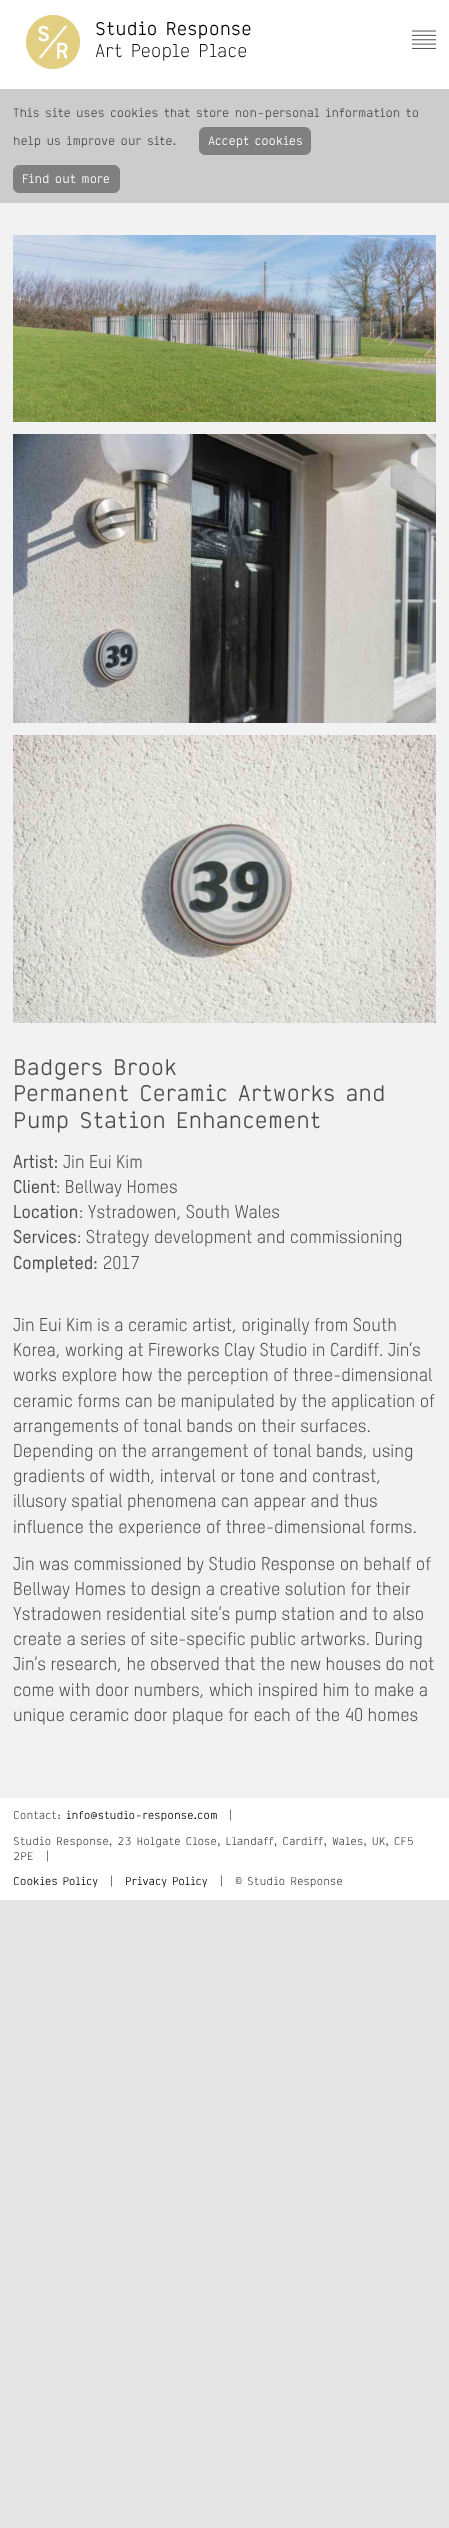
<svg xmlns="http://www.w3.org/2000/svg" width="449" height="2528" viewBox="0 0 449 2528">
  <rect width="100%" height="100%" fill="#e5e5e5"/>
  <rect x="0" y="0" width="449" height="89" fill="#ffffff"/>
  <image x="26" y="15" width="54" height="54" href="img1.png"/>
  <text x="95" y="35" font-family="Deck" font-size="18" fill="#000000">Studio Response</text>
  <text x="95" y="57" font-family="Deck" font-size="18" font-weight="300" fill="#000000">Art People Place</text>
  <image x="412" y="30" width="24" height="19" href="img2.png"/>
  <rect x="0" y="89" width="449" height="114" fill="#cccccc"/>
  <text x="13" y="117" font-family="Deck" font-size="12.05" fill="#4d4d4d">This site uses cookies that store non-personal information to</text>
  <text x="13" y="145" font-family="Deck" font-size="12.05" fill="#4d4d4d">help us improve our site.</text>
  <rect x="199.5" y="127.5" width="111" height="27" rx="5.5" fill="#808080" stroke="#808080"/>
  <text x="208" y="145" font-family="Deck" font-size="12.05" fill="#ffffff">Accept cookies</text>
  <rect x="13.5" y="165.5" width="106" height="27" rx="5.5" fill="#808080" stroke="#808080"/>
  <text x="22" y="183" font-family="Deck" font-size="12.05" fill="#ffffff">Find out more</text>
  <rect x="0" y="203" width="449" height="1595" fill="#f2f2f2"/>
  <image x="13" y="235" width="423" height="187" href="img3.png"/>
  <image x="13" y="434" width="423" height="289" href="img4.png"/>
  <image x="13" y="735" width="423" height="288" href="img5.png"/>
  <text x="13" y="1075" font-family="Deck" font-size="22" fill="#4d4d4d">Badgers Brook</text>
  <text x="13" y="1101" font-family="Deck" font-size="22" fill="#4d4d4d">Permanent Ceramic Artworks and</text>
  <text x="13" y="1128" font-family="Deck" font-size="22" fill="#4d4d4d">Pump Station Enhancement</text>
  <text x="13" y="1168" font-family="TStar" font-size="18" font-weight="500" fill="#4d4d4d">Artist:</text>
  <text x="63" y="1168" font-family="TStar" font-size="18" fill="#4d4d4d">Jin Eui Kim</text>
  <text x="13" y="1193" font-family="TStar" font-size="18" font-weight="500" fill="#4d4d4d">Client</text>
  <text x="56" y="1193" font-family="TStar" font-size="18" fill="#4d4d4d">: Bellway Homes</text>
  <text x="13" y="1218" font-family="TStar" font-size="18" font-weight="500" fill="#4d4d4d">Location</text>
  <text x="79" y="1218" font-family="TStar" font-size="18" fill="#4d4d4d">: Ystradowen, South Wales</text>
  <text x="13" y="1243" font-family="TStar" font-size="18" font-weight="500" fill="#4d4d4d">Services</text>
  <text x="77" y="1243" font-family="TStar" font-size="18" fill="#4d4d4d">: Strategy development and commissioning</text>
  <text x="13" y="1269" font-family="TStar" font-size="18" font-weight="500" fill="#4d4d4d">Completed:</text>
  <text x="103" y="1269" font-family="TStar" font-size="18" fill="#4d4d4d">2017</text>
  <text x="13" y="1331" font-family="TStar" font-size="18" fill="#4d4d4d">Jin Eui Kim is a ceramic artist, originally from South</text>
  <text x="13" y="1356" font-family="TStar" font-size="18" fill="#4d4d4d">Korea, working at Fireworks Clay Studio in Cardiff. Jin’s</text>
  <text x="13" y="1381" font-family="TStar" font-size="18" fill="#4d4d4d">works explore how the perception of three-dimensional</text>
  <text x="13" y="1407" font-family="TStar" font-size="18" fill="#4d4d4d">ceramic forms can be manipulated by the application of</text>
  <text x="13" y="1432" font-family="TStar" font-size="18" fill="#4d4d4d">arrangements of tonal bands on their surfaces.</text>
  <text x="13" y="1457" font-family="TStar" font-size="18" fill="#4d4d4d">Depending on the arrangement of tonal bands, using</text>
  <text x="13" y="1482" font-family="TStar" font-size="18" fill="#4d4d4d">gradients of width, interval or tone and contrast,</text>
  <text x="13" y="1507" font-family="TStar" font-size="18" fill="#4d4d4d">illusory spatial phenomena can appear and thus</text>
  <text x="13" y="1533" font-family="TStar" font-size="18" fill="#4d4d4d">influence the experience of three-dimensional forms.</text>
  <text x="13" y="1570" font-family="TStar" font-size="18" fill="#4d4d4d">Jin was commissioned by Studio Response on behalf of</text>
  <text x="13" y="1595" font-family="TStar" font-size="18" fill="#4d4d4d">Bellway Homes to design a creative solution for their</text>
  <text x="13" y="1620" font-family="TStar" font-size="18" fill="#4d4d4d">Ystradowen residential site’s pump station and to also</text>
  <text x="13" y="1645" font-family="TStar" font-size="18" fill="#4d4d4d">create a series of site-specific public artworks. During</text>
  <text x="13" y="1670" font-family="TStar" font-size="18" fill="#4d4d4d">Jin’s research, he observed that the new houses do not</text>
  <text x="13" y="1696" font-family="TStar" font-size="18" fill="#4d4d4d">come with door numbers, which inspired him to make a</text>
  <text x="13" y="1721" font-family="TStar" font-size="18" fill="#4d4d4d">unique ceramic door plaque for each of the 40 homes</text>
  <rect x="0" y="1798" width="449" height="102" fill="#ffffff"/>
  <text x="13" y="1819" font-family="Deck" font-size="11" fill="#4d4d4d">Contact:</text>
  <text x="66" y="1819" font-family="Deck" font-size="11" fill="#000000">info@studio-response.com</text>
  <text x="227" y="1819" font-family="Deck" font-size="11" fill="#4d4d4d">|</text>
  <text x="13" y="1845" font-family="Deck" font-size="11" fill="#4d4d4d">Studio Response, 23 Holgate Close, Llandaff, Cardiff, Wales, UK, CF5</text>
  <text x="13" y="1860" font-family="Deck" font-size="11" fill="#4d4d4d">2PE</text>
  <text x="44" y="1860" font-family="Deck" font-size="11" fill="#4d4d4d">|</text>
  <text x="13" y="1885" font-family="Deck" font-size="11" fill="#000000">Cookies Policy</text>
  <text x="108" y="1885" font-family="Deck" font-size="11" fill="#4d4d4d">|</text>
  <text x="125" y="1885" font-family="Deck" font-size="11" fill="#000000">Privacy Policy</text>
  <text x="218" y="1885" font-family="Deck" font-size="11" fill="#4d4d4d">|</text>
  <text x="235" y="1885" font-family="Deck" font-size="11" fill="#4d4d4d">© Studio Response</text>
</svg>
